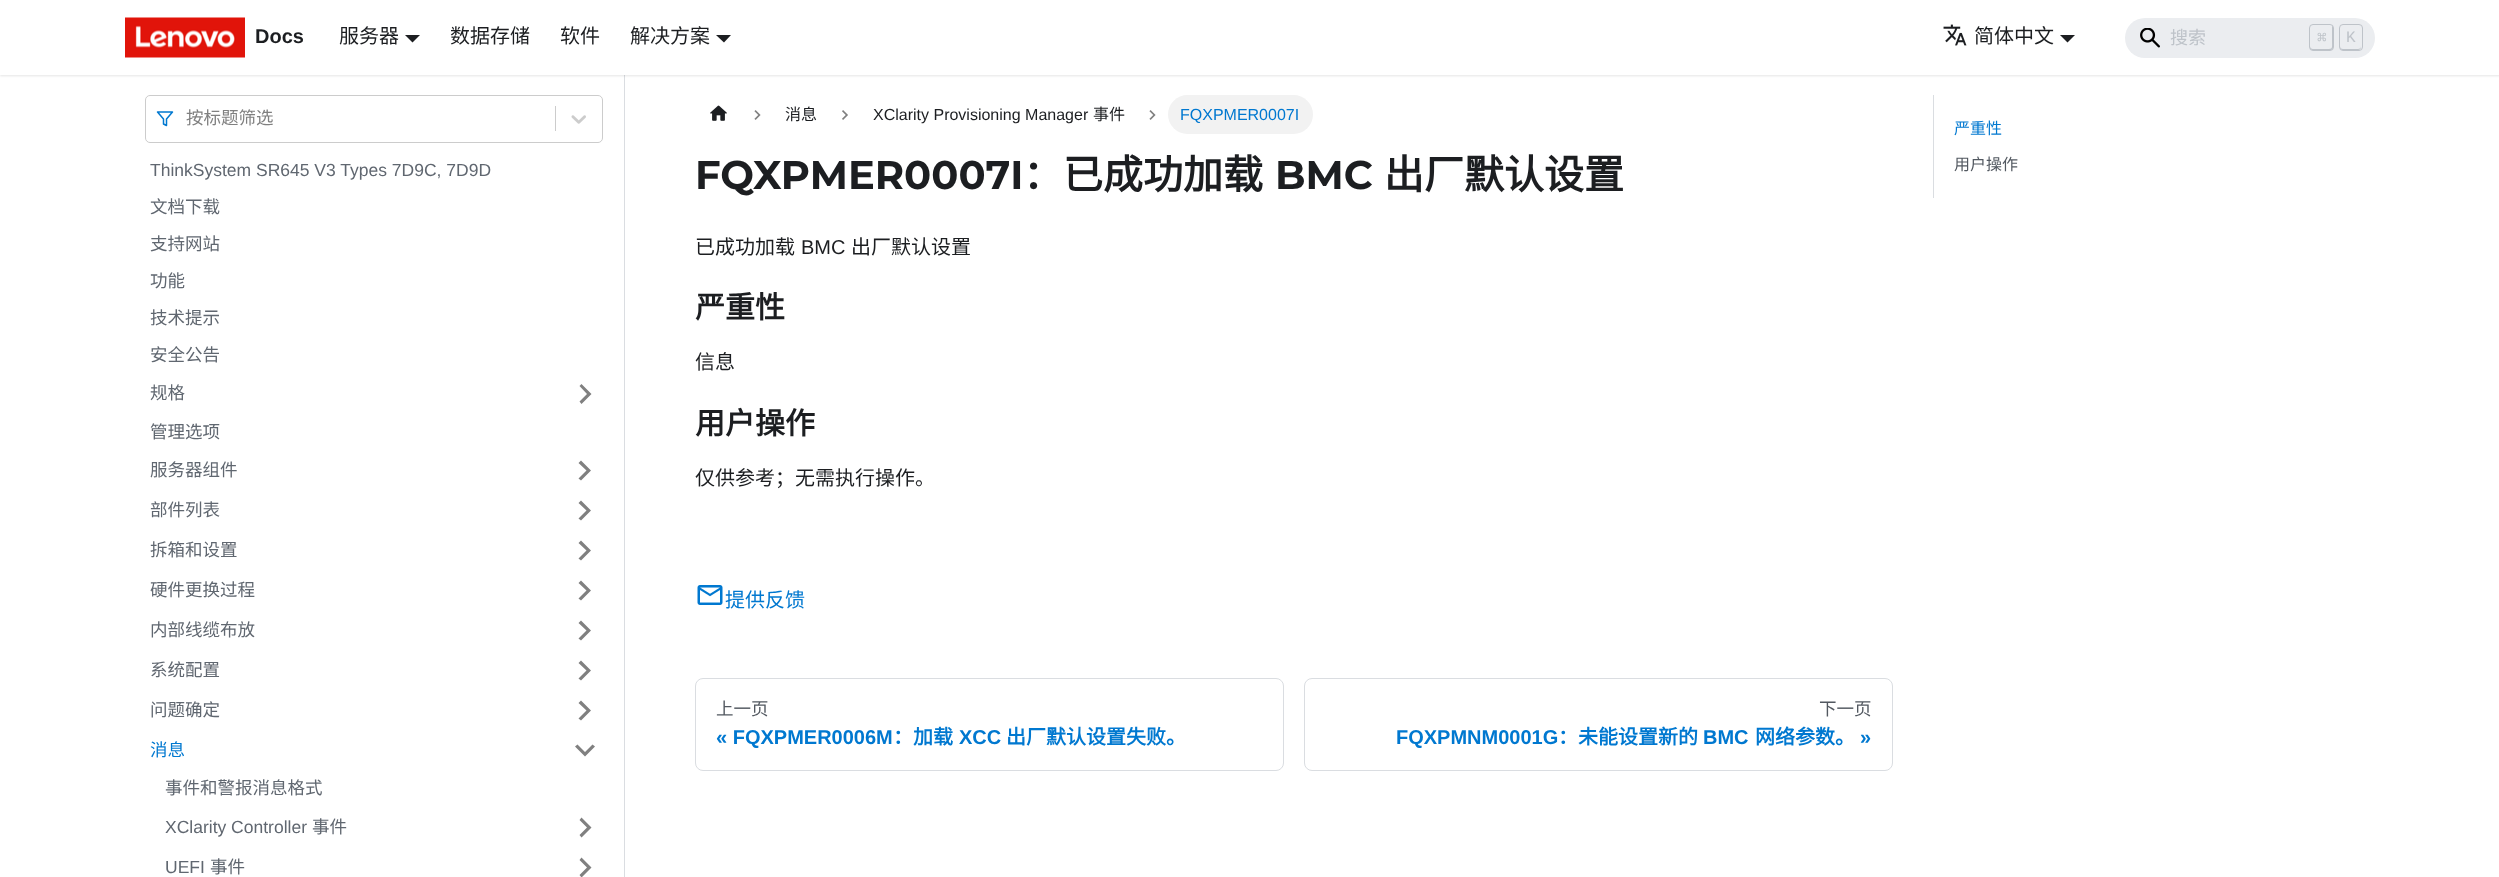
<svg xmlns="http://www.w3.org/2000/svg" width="2499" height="877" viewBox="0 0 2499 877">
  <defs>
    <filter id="blur1" x="-50%" y="-200%" width="200%" height="500%"><feGaussianBlur stdDeviation="1"/></filter>
  </defs>
  <rect width="100%" height="100%" fill="#ffffff"/>
  <rect x="624" y="75" width="1" height="802" fill="#dadde1"/>
  <rect x="0" y="1" width="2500" height="75" fill="#000000" fill-opacity="0.1" filter="url(#blur1)"/>
  <rect x="0" y="0" width="2499" height="75" fill="#ffffff"/>
  <image x="125" y="17" width="120" height="41" href="img1.png"/>
  <text x="255" y="43" font-family="Liberation Sans" font-size="20" font-weight="bold" fill="#1c1e21">Docs</text>
  <text x="339" y="43" font-family="Noto Sans CJK SC" font-size="20" fill="#1c1e21">服务器</text>
  <path d="M405 35H420L412.5 42.5Z" fill="#1c1e21"/>
  <text x="450" y="43" font-family="Noto Sans CJK SC" font-size="20" fill="#1c1e21">数据存储</text>
  <text x="560" y="43" font-family="Noto Sans CJK SC" font-size="20" fill="#1c1e21">软件</text>
  <text x="630" y="43" font-family="Noto Sans CJK SC" font-size="20" fill="#1c1e21">解决方案</text>
  <path d="M716 35H731L724 42.5Z" fill="#1c1e21"/>
  <image x="1943" y="24" width="24" height="22" href="img2.png"/>
  <text x="1974" y="43" font-family="Noto Sans CJK SC" font-size="20" fill="#1c1e21">简体中文</text>
  <path d="M2060 35H2075L2067.5 42.5Z" fill="#1c1e21"/>
  <rect x="2125" y="18" width="250" height="40" rx="20" fill="#ebedf0"/>
  <image x="2140" y="28" width="20" height="20" href="img3.png"/>
  <text x="2170" y="44" font-family="Noto Sans CJK SC" font-size="18" fill="#bec3c9">搜索</text>
  <path d="M2310 46V47.5C2310 49 2311 50 2312.5 50H2330.5C2332 50 2333 49 2333 47.5V27.5C2333 26.5 2332.5 26 2332 25.5V39.5C2332 49.5 2333.5 49 2324.5 49H2312.5C2310.5 48.5 2310 47.5 2310 46Z" fill="#bec3c9"/>
  <rect x="2309.5" y="24.5" width="24" height="26" rx="3.5" fill="none" stroke="#bec3c9"/>
  <text x="2317" y="43" font-family="DejaVu Sans Mono" font-size="16" fill="#bec3c9">⌘</text>
  <path d="M2340 46C2340 50 2341.5 50 2345 50H2356C2359.5 50 2361 50 2361 46C2361 48 2360 49 2358 49H2343C2341 49 2340 48 2340 46Z" fill="#bec3c9"/>
  <rect x="2339.5" y="24.5" width="23" height="26" rx="3.5" fill="none" stroke="#bec3c9"/>
  <text x="2346" y="42" font-family="Liberation Mono" font-size="16" fill="#bec3c9">K</text>
  <rect x="145.5" y="95.5" width="457" height="47" rx="4.5" fill="none" stroke="#cccccc"/>
  <path d="M172.5 112H157.5L163.5 119V124L166.5 125.5V119Z" fill="none" stroke="#0078d0" stroke-width="1.5" stroke-linecap="round" stroke-linejoin="round"/>
  <text x="186" y="124" font-family="Noto Sans CJK SC" font-size="17.5" fill="#808080">按标题筛选</text>
  <rect x="555" y="106" width="1" height="25" fill="#cccccc"/>
  <image x="571" y="115" width="15" height="9" href="img4.png"/>
  <text x="150" y="176" font-family="Liberation Sans" font-size="17.5" fill="#606770">ThinkSystem SR645 V3 Types 7D9C, 7D9D</text>
  <text x="150" y="213" font-family="Noto Sans CJK SC" font-size="17.5" fill="#606770">文档下载</text>
  <text x="150" y="250" font-family="Noto Sans CJK SC" font-size="17.5" fill="#606770">支持网站</text>
  <text x="150" y="287" font-family="Noto Sans CJK SC" font-size="17.5" fill="#606770">功能</text>
  <text x="150" y="324" font-family="Noto Sans CJK SC" font-size="17.5" fill="#606770">技术提示</text>
  <text x="150" y="361" font-family="Noto Sans CJK SC" font-size="17.5" fill="#606770">安全公告</text>
  <text x="150" y="399" font-family="Noto Sans CJK SC" font-size="17.5" fill="#606770">规格</text>
  <path d="M579.5 386L587 394L579.5 401.5L581.5 404L591.5 394L581.5 384Z" fill="#808080"/>
  <text x="150" y="438" font-family="Noto Sans CJK SC" font-size="17.5" fill="#606770">管理选项</text>
  <text x="150" y="476" font-family="Noto Sans CJK SC" font-size="17.5" fill="#606770">服务器组件</text>
  <path d="M578.5 463L586.5 470.5L578.5 478.5L581 480.5L591 470.5L581 460.5Z" fill="#808080"/>
  <text x="150" y="516" font-family="Noto Sans CJK SC" font-size="17.5" fill="#606770">部件列表</text>
  <path d="M578.5 503L586.5 510.5L578.5 518.5L581 520.5L591 510.5L581 500.5Z" fill="#808080"/>
  <text x="150" y="556" font-family="Noto Sans CJK SC" font-size="17.5" fill="#606770">拆箱和设置</text>
  <path d="M578.5 543L586.5 550.5L578.5 558.5L581 560.5L591 550.5L581 540.5Z" fill="#808080"/>
  <text x="150" y="596" font-family="Noto Sans CJK SC" font-size="17.5" fill="#606770">硬件更换过程</text>
  <path d="M578.5 583L586.5 590.5L578.5 598.5L581 600.5L591 590.5L581 580.5Z" fill="#808080"/>
  <text x="150" y="636" font-family="Noto Sans CJK SC" font-size="17.5" fill="#606770">内部线缆布放</text>
  <path d="M578.5 623L586.5 630.5L578.5 638.5L581 640.5L591 630.5L581 620.5Z" fill="#808080"/>
  <text x="150" y="676" font-family="Noto Sans CJK SC" font-size="17.5" fill="#606770">系统配置</text>
  <path d="M578.5 663L586.5 670.5L578.5 678.5L581 680.5L591 670.5L581 660.5Z" fill="#808080"/>
  <text x="150" y="716" font-family="Noto Sans CJK SC" font-size="17.5" fill="#606770">问题确定</text>
  <path d="M578.5 703L586.5 710.5L578.5 718.5L581 720.5L591 710.5L581 700.5Z" fill="#808080"/>
  <text x="150" y="756" font-family="Noto Sans CJK SC" font-size="17.5" fill="#0078d0">消息</text>
  <path d="M592.5 744.5L585 752L577.5 744.5L575 746.5L585 756.5L595 746.5Z" fill="#808080"/>
  <text x="165" y="794" font-family="Noto Sans CJK SC" font-size="17.5" fill="#606770">事件和警报消息格式</text>
  <text x="165" y="833" font-family="Liberation Sans" font-size="17.5" fill="#606770">XClarity Controller</text>
  <text x="312" y="833" font-family="Noto Sans CJK SC" font-size="17.5" fill="#606770">事件</text>
  <path d="M579.5 820L587 827.5L579.5 835L581.5 837.5L591.5 827.5L581.5 817.5Z" fill="#808080"/>
  <text x="165" y="873" font-family="Liberation Sans" font-size="17.5" fill="#606770">UEFI</text>
  <text x="210" y="873" font-family="Noto Sans CJK SC" font-size="17.5" fill="#606770">事件</text>
  <path d="M579.5 860L587 867.5L579.5 875L581.5 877.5L591.5 867.5L581.5 857.5Z" fill="#808080"/>
  <image x="710" y="105" width="17" height="16" href="img5.png"/>
  <image x="754" y="110" width="7" height="10" href="img6.png"/>
  <text x="785" y="120" font-family="Noto Sans CJK SC" font-size="16" fill="#1c1e21">消息</text>
  <image x="842" y="110" width="6" height="10" href="img7.png"/>
  <text x="873" y="120" font-family="Liberation Sans" font-size="16" fill="#1c1e21">XClarity Provisioning Manager</text>
  <text x="1093" y="120" font-family="Noto Sans CJK SC" font-size="16" fill="#1c1e21">事件</text>
  <image x="1149" y="110" width="7" height="10" href="img6.png"/>
  <rect x="1168" y="95" width="145" height="39" rx="19.5" fill="#f2f2f2"/>
  <text x="1180" y="120" font-family="Liberation Sans" font-size="16" fill="#0078d0">FQXPMER0007I</text>
  <text x="695" y="189" font-family="Montserrat" font-size="40" font-weight="bold" fill="#1c1e21">FQXPMER0007I</text>
  <text x="1023" y="189" font-family="Noto Sans CJK SC" font-size="40" font-weight="bold" fill="#1c1e21">：已成功加载</text>
  <text x="1275" y="189" font-family="Montserrat" font-size="40" font-weight="bold" fill="#1c1e21">BMC</text>
  <text x="1384" y="189" font-family="Noto Sans CJK SC" font-size="40" font-weight="bold" fill="#1c1e21">出厂默认设置</text>
  <text x="695" y="254" font-family="Noto Sans CJK SC" font-size="20" fill="#1c1e21">已成功加载</text>
  <text x="801" y="254" font-family="Liberation Sans" font-size="20" fill="#1c1e21">BMC</text>
  <text x="851" y="254" font-family="Noto Sans CJK SC" font-size="20" fill="#1c1e21">出厂默认设置</text>
  <text x="695" y="318" font-family="Noto Sans CJK SC" font-size="30" font-weight="bold" fill="#1c1e21">严重性</text>
  <text x="695" y="369" font-family="Noto Sans CJK SC" font-size="20" fill="#1c1e21">信息</text>
  <text x="695" y="434" font-family="Noto Sans CJK SC" font-size="30" font-weight="bold" fill="#1c1e21">用户操作</text>
  <text x="695" y="485" font-family="Noto Sans CJK SC" font-size="20" fill="#1c1e21">仅供参考；无需执行操作。</text>
  <image x="697" y="585" width="26" height="20" href="img8.png"/>
  <text x="725" y="607" font-family="Noto Sans CJK SC" font-size="20" fill="#0078d0">提供反馈</text>
  <rect x="695.5" y="678.5" width="588" height="92" rx="7.5" fill="none" stroke="#dadde1"/>
  <text x="716" y="715" font-family="Noto Sans CJK SC" font-size="17.5" fill="#525860">上一页</text>
  <text x="716" y="744" font-family="Liberation Sans" font-size="20" font-weight="bold" fill="#0078d0">« FQXPMER0006M</text>
  <text x="893" y="744" font-family="Noto Sans CJK SC" font-size="20" font-weight="bold" fill="#0078d0">：加载</text>
  <text x="959" y="744" font-family="Liberation Sans" font-size="20" font-weight="bold" fill="#0078d0">XCC</text>
  <text x="1006" y="744" font-family="Noto Sans CJK SC" font-size="20" font-weight="bold" fill="#0078d0">出厂默认设置失败。</text>
  <rect x="1304.5" y="678.5" width="588" height="92" rx="7.5" fill="none" stroke="#dadde1"/>
  <text x="1819" y="715" font-family="Noto Sans CJK SC" font-size="17.5" fill="#525860">下一页</text>
  <text x="1396" y="744" font-family="Liberation Sans" font-size="20" font-weight="bold" fill="#0078d0">FQXPMNM0001G</text>
  <text x="1558" y="744" font-family="Noto Sans CJK SC" font-size="20" font-weight="bold" fill="#0078d0">：未能设置新的</text>
  <text x="1703" y="744" font-family="Liberation Sans" font-size="20" font-weight="bold" fill="#0078d0">BMC</text>
  <text x="1755" y="744" font-family="Noto Sans CJK SC" font-size="20" font-weight="bold" fill="#0078d0">网络参数。</text>
  <text x="1860" y="744" font-family="Liberation Sans" font-size="20" font-weight="bold" fill="#0078d0">»</text>
  <rect x="1933" y="95" width="1" height="103" fill="#dadde1"/>
  <text x="1954" y="134" font-family="Noto Sans CJK SC" font-size="16" fill="#0078d0">严重性</text>
  <text x="1954" y="170" font-family="Noto Sans CJK SC" font-size="16" fill="#525860">用户操作</text>
</svg>
